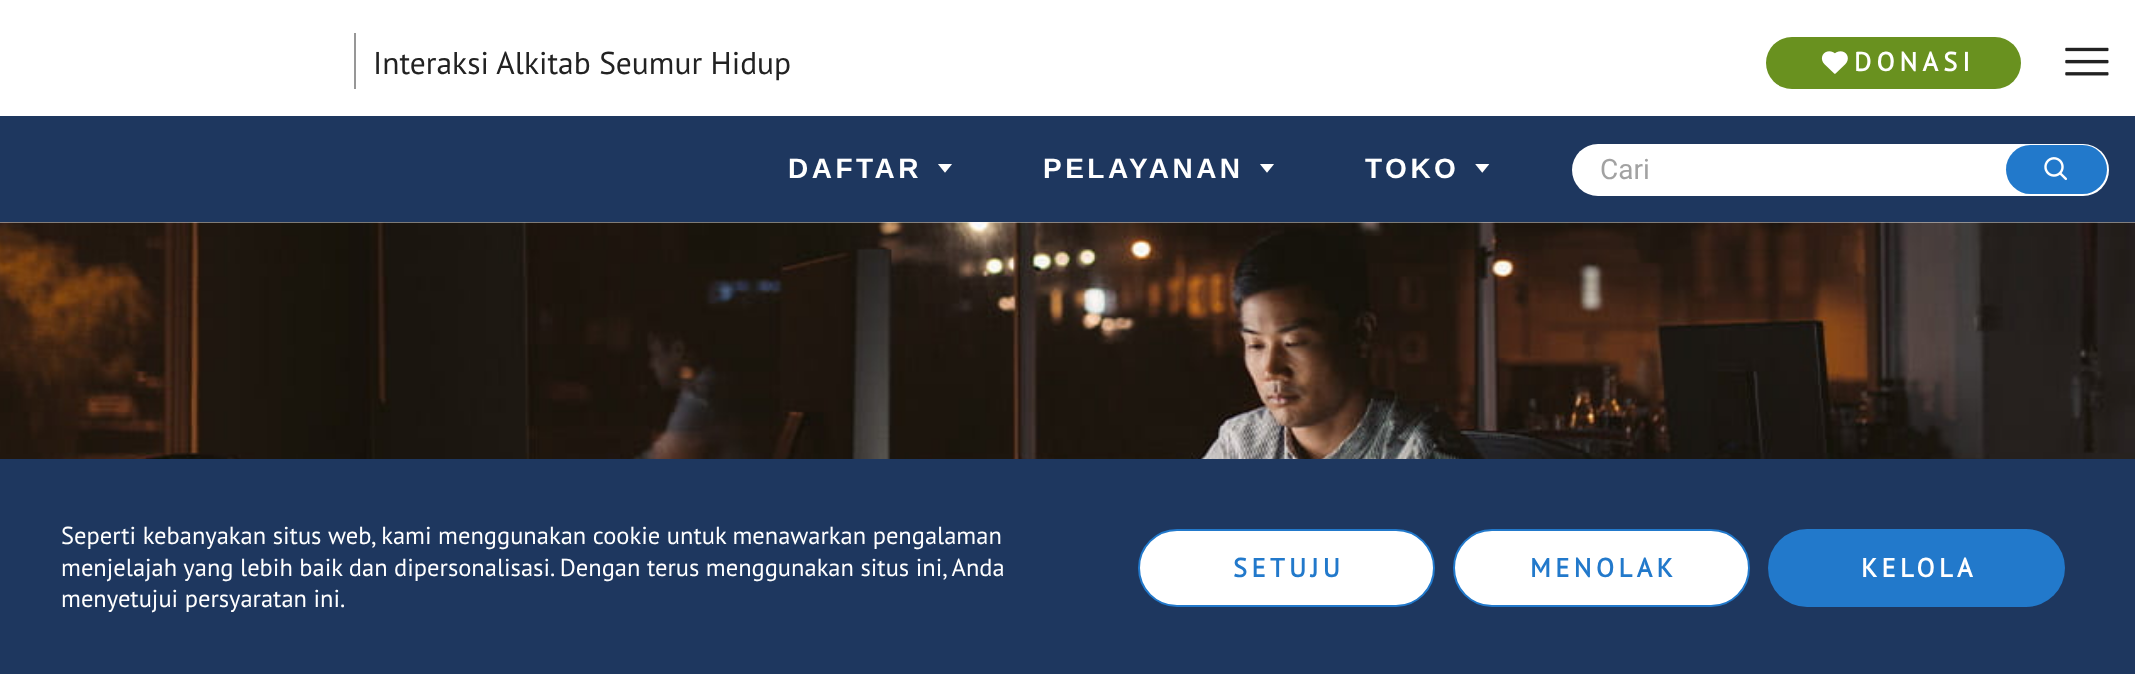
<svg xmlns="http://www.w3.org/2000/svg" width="2135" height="674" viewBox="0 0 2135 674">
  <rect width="100%" height="100%" fill="#ffffff"/>
  <rect x="354" y="33" width="2" height="56" fill="#979797"/>
  <text x="373" y="74" font-family="PT Sans" font-size="31.5" fill="#222222">Interaksi Alkitab Seumur Hidup</text>
  <rect x="1766" y="37" width="255" height="52" rx="26" fill="#69911f"/>
  <image x="1821" y="51" width="27" height="23" href="img1.png"/>
  <text x="1854" y="71" font-family="PT Sans" font-size="26.25" font-weight="bold" letter-spacing="5.25" fill="#ffffff">DONASI</text>
  <image x="2065" y="47" width="44" height="29" href="img2.png"/>
  <rect x="0" y="116" width="2135" height="106" fill="#1e375f"/>
  <text x="788" y="178" font-family="Liberation Sans" font-size="28" font-weight="bold" letter-spacing="3.5" fill="#ffffff">DAFTAR</text>
  <image x="938" y="164" width="14" height="9" href="img3.png"/>
  <text x="1043" y="178" font-family="Liberation Sans" font-size="28" font-weight="bold" letter-spacing="3.5" fill="#ffffff">PELAYANAN</text>
  <image x="1260" y="164" width="14" height="9" href="img3.png"/>
  <text x="1365" y="178" font-family="Liberation Sans" font-size="28" font-weight="bold" letter-spacing="3.5" fill="#ffffff">TOKO</text>
  <image x="1475" y="164" width="15" height="9" href="img4.png"/>
  <rect x="1572" y="144" width="537" height="52" rx="26" fill="#ffffff"/>
  <text x="1600" y="179" font-family="Roboto" font-size="28" fill="#a2a2a2">Cari</text>
  <rect x="2006" y="145" width="101" height="49" rx="24.5" fill="#2279cb"/>
  <image x="2044" y="157" width="23" height="24" href="img5.png"/>
  <image x="0" y="222" width="2135" height="237" href="img6.png"/>
  <rect x="0" y="459" width="2135" height="215" fill="#1e375f"/>
  <text x="61" y="544" font-family="PT Sans" font-size="24.5" fill="#ffffff">Seperti kebanyakan situs web, kami menggunakan cookie untuk menawarkan pengalaman</text>
  <text x="61" y="576" font-family="PT Sans" font-size="24.5" fill="#ffffff">menjelajah yang lebih baik dan dipersonalisasi. Dengan terus menggunakan situs ini, Anda</text>
  <text x="61" y="607" font-family="PT Sans" font-size="24.5" fill="#ffffff">menyetujui persyaratan ini.</text>
  <rect x="1139" y="530" width="295" height="76" rx="38" fill="#ffffff" stroke="#2279cb" stroke-width="2"/>
  <text x="1233" y="577" font-family="PT Sans" font-size="26.25" font-weight="bold" letter-spacing="4.5" fill="#2279cb">SETUJU</text>
  <rect x="1454" y="530" width="295" height="76" rx="38" fill="#ffffff" stroke="#2279cb" stroke-width="2"/>
  <text x="1530" y="577" font-family="PT Sans" font-size="26.25" font-weight="bold" letter-spacing="4.5" fill="#2279cb">MENOLAK</text>
  <rect x="1768" y="529" width="297" height="78" rx="39" fill="#2279cb"/>
  <text x="1861" y="577" font-family="PT Sans" font-size="26.25" font-weight="bold" letter-spacing="4.5" fill="#ffffff">KELOLA</text>
</svg>
